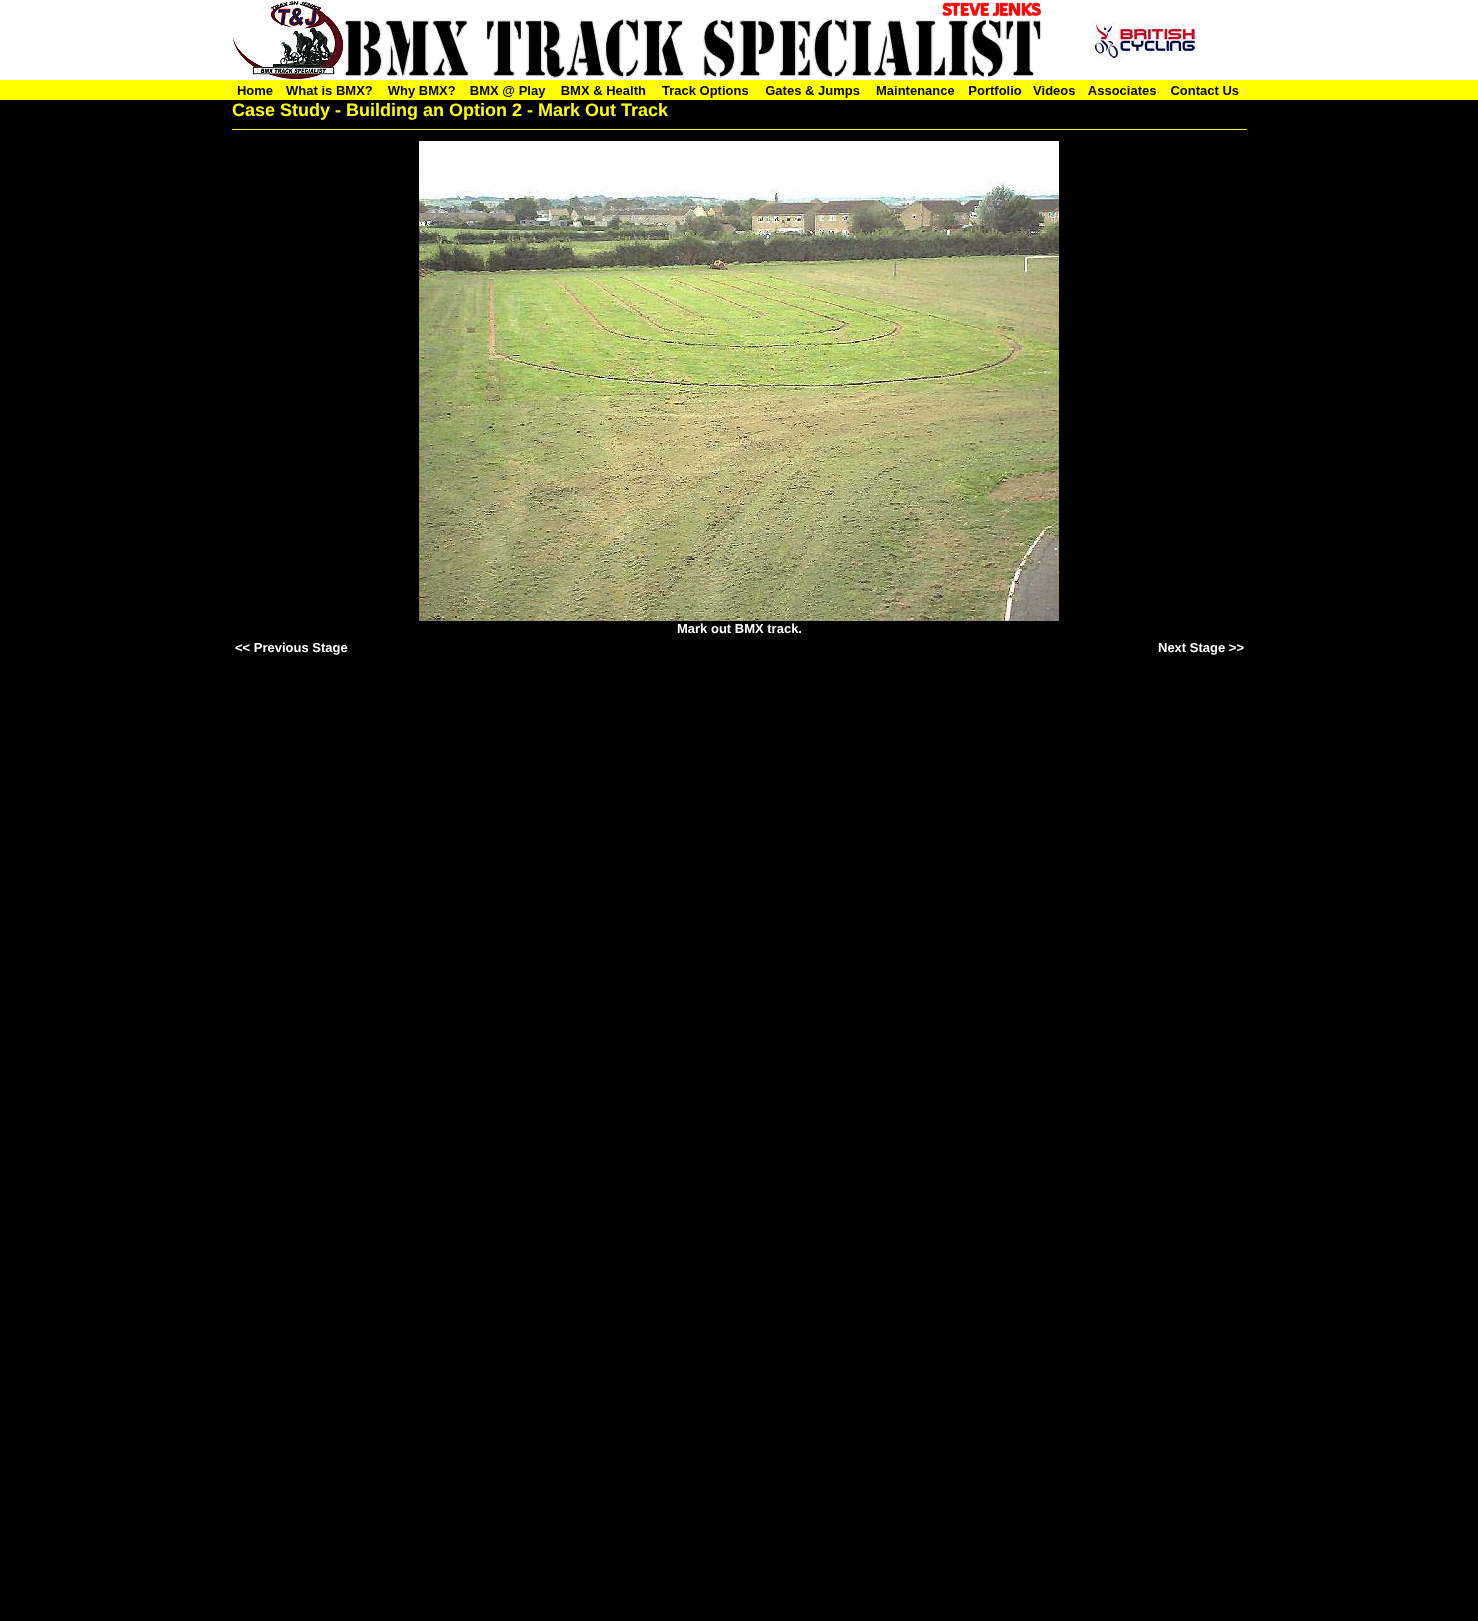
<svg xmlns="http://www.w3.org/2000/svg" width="1478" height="1621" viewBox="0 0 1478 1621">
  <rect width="100%" height="100%" fill="#000000"/>
  <image x="0" y="0" width="1478" height="100" href="img1.png"/>
  <text x="232" y="116" font-family="Liberation Sans" font-size="18" font-weight="bold" fill="#ffff00">Case Study - Building an Option 2 - Mark Out Track</text>
  <rect x="232" y="129" width="1015" height="1" fill="#ffff00"/>
  <image x="419" y="141" width="640" height="480" href="img2.png"/>
  <text x="677" y="633" font-family="Liberation Sans" font-size="13" font-weight="bold" fill="#ffffff">Mark out BMX track.</text>
  <text x="235" y="652" font-family="Liberation Sans" font-size="13" font-weight="bold" fill="#ffffff">&lt;&lt; Previous Stage</text>
  <text x="1158" y="652" font-family="Liberation Sans" font-size="13" font-weight="bold" fill="#ffffff">Next Stage &gt;&gt;</text>
</svg>
